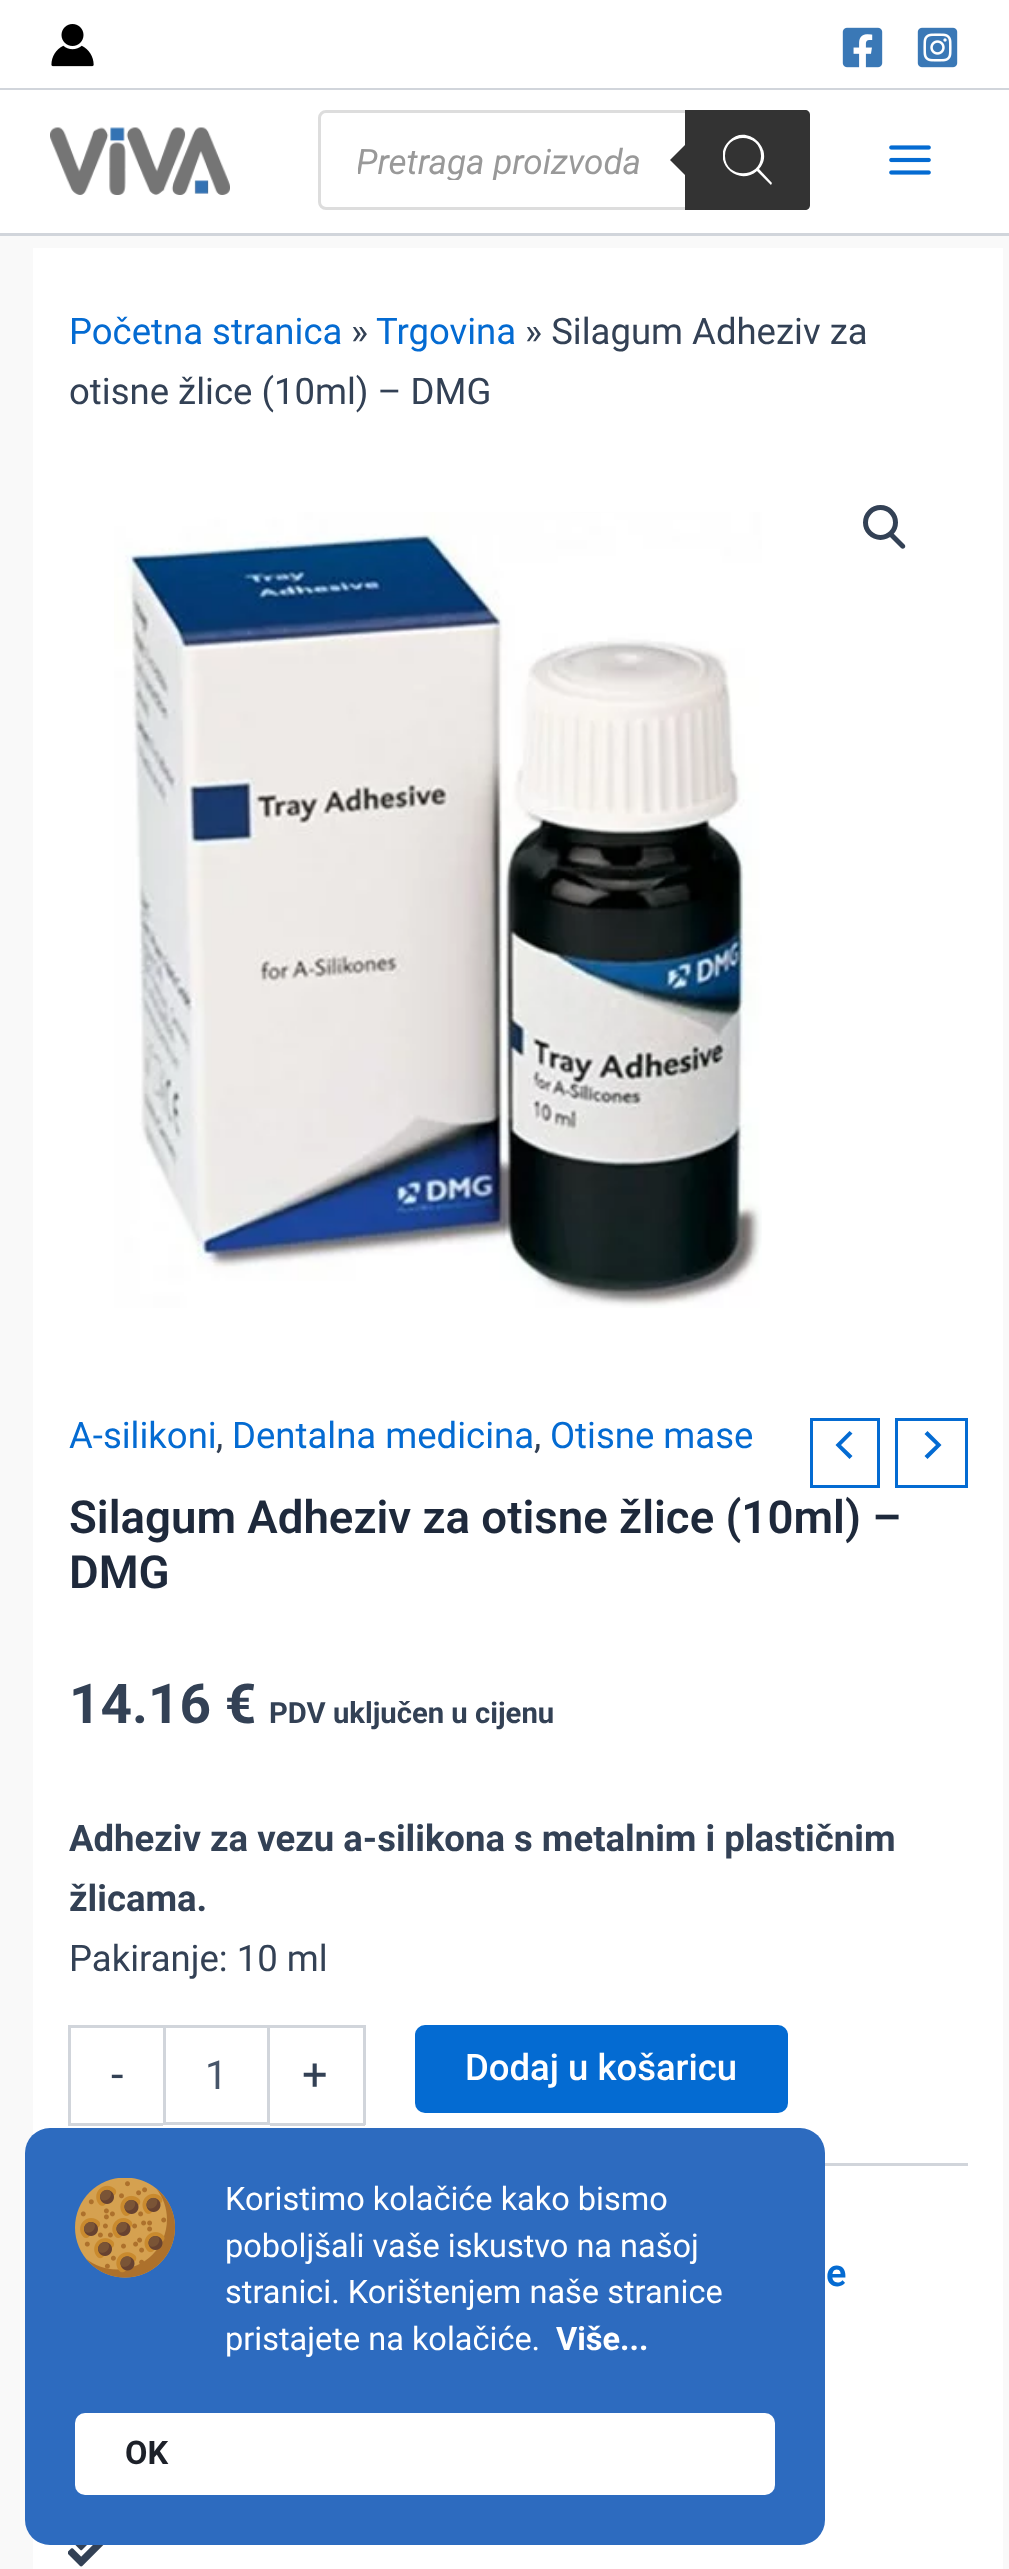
<svg xmlns="http://www.w3.org/2000/svg" width="1009" height="2569" viewBox="0 0 1009 2569">
  <defs>
    <clipPath id="clip1"><rect x="358" y="140" width="412" height="40"/></clipPath>
    <clipPath id="clip2"><rect x="723" y="110" width="50" height="100"/></clipPath>
  </defs>
  <rect width="100%" height="100%" fill="#f9f9f9"/>
  <rect x="0" y="0" width="1009" height="88" fill="#ffffff"/>
  <rect x="0" y="88" width="1009" height="2" fill="#d1d5db"/>
  <image x="51" y="24" width="43" height="43" href="img1.png"/>
  <image x="842" y="27" width="41" height="41" href="img2.png"/>
  <image x="917" y="27" width="41" height="41" href="img3.png"/>
  <rect x="0" y="90" width="1009" height="143" fill="#ffffff"/>
  <rect x="0" y="233" width="1009" height="3" fill="#d1d5db"/>
  <image x="50" y="127" width="180" height="68" href="img4.png"/>
  <rect x="319.5" y="111.5" width="489" height="97" rx="6.5" fill="none" stroke="#dddddd" stroke-width="3"/>
  <g clip-path="url(#clip1)">
    <text x="356" y="174" font-family="Roboto" font-size="35" font-style="italic" fill="#999999">Pretraga proizvoda</text>
  </g>
  <path d="M685 110H805C808 110 810 112 810 115V205C810 208 808 210 805 210H685Z" fill="#333333"/>
  <path d="M690 140V180L670 160Z" fill="#333333"/>
  <g clip-path="url(#clip2)">
    <path d="M772 183L759 169C776 150 747 122 729 141C710 160 737 188 757 171L771 185ZM725 156C725 132 761 132 761 156C761 179 725 179 725 156Z" fill="#ffffff"/>
  </g>
  <image x="889" y="145" width="42" height="30" href="img5.png"/>
  <rect x="33" y="248" width="970" height="2321" fill="#ffffff"/>
  <text x="69" y="344" font-family="Roboto" font-size="36.5" fill="#046bd2">Početna stranica</text>
  <text x="351" y="344" font-family="Roboto" font-size="36.5" fill="#334155">»</text>
  <text x="376" y="344" font-family="Roboto" font-size="36.5" fill="#046bd2">Trgovina</text>
  <text x="525" y="344" font-family="Roboto" font-size="36.5" fill="#334155">» Silagum Adheziv za</text>
  <text x="69" y="404" font-family="Roboto" font-size="36.5" fill="#334155">otisne žlice (10ml) – DMG</text>
  <image x="114" y="512" width="648" height="796" href="img6.png"/>
  <circle cx="880.5" cy="522.5" r="15" fill="none" stroke="#334155" stroke-width="5"/>
  <path d="M890.5 534C891.5 533 893 533 894 534L904.5 544.5C905.5 545.5 905.5 547 904.5 548C903.5 549 902 549 901 548L890.5 537.5C889.5 536.5 889.5 535 890.5 534Z" fill="#334155"/>
  <text x="69" y="1448" font-family="Roboto" font-size="36.5" fill="#046bd2">A-silikoni</text>
  <text x="216" y="1448" font-family="Roboto" font-size="36.5" fill="#334155">,</text>
  <text x="232" y="1448" font-family="Roboto" font-size="36.5" fill="#046bd2">Dentalna medicina</text>
  <text x="534" y="1448" font-family="Roboto" font-size="36.5" fill="#334155">,</text>
  <text x="550" y="1448" font-family="Roboto" font-size="36.5" fill="#046bd2">Otisne mase</text>
  <rect x="811.5" y="1419.5" width="67" height="67" fill="none" stroke="#046bd2" stroke-width="3"/>
  <path d="M849.5 1431L835.5 1445L849.5 1459L852.5 1456L841 1445L852.5 1433.5Z" fill="#046bd2"/>
  <rect x="896.5" y="1419.5" width="70" height="67" fill="none" stroke="#046bd2" stroke-width="3"/>
  <path d="M927.5 1459L941.5 1445L927.5 1431L924.5 1434L936 1445L924.5 1456Z" fill="#046bd2"/>
  <text x="69" y="1533" font-family="Roboto" font-size="45.6" font-weight="600" fill="#1e293b">Silagum Adheziv za otisne žlice (10ml) –</text>
  <text x="69" y="1588" font-family="Roboto" font-size="45.6" font-weight="600" fill="#1e293b">DMG</text>
  <text x="69" y="1723" font-family="Roboto" font-size="55" font-weight="bold" fill="#334155">14.16 €</text>
  <text x="269" y="1723" font-family="Roboto" font-size="29.25" font-weight="bold" fill="#334155">PDV uključen u cijenu</text>
  <text x="69" y="1851" font-family="Roboto" font-size="36.5" font-weight="bold" fill="#334155">Adheziv za vezu a-silikona s metalnim i plastičnim</text>
  <text x="69" y="1911" font-family="Roboto" font-size="36.5" font-weight="bold" fill="#334155">žlicama.</text>
  <text x="69" y="1971" font-family="Roboto" font-size="36.5" fill="#334155">Pakiranje: 10 ml</text>
  <rect x="68" y="2025" width="95" height="3" fill="#d1d5db"/>
  <rect x="68" y="2123" width="95" height="3" fill="#d1d5db"/>
  <rect x="68" y="2025" width="3" height="100" fill="#d1d5db"/>
  <text x="111" y="2090" font-family="Roboto" font-size="45" fill="#334155">-</text>
  <rect x="164.5" y="2026.5" width="104" height="97" fill="none" stroke="#d1d5db" stroke-width="3"/>
  <text x="205" y="2089" font-family="Roboto" font-size="40" fill="#475569">1</text>
  <rect x="270" y="2025" width="95" height="3" fill="#d1d5db"/>
  <rect x="363" y="2025" width="3" height="100" fill="#d1d5db"/>
  <rect x="270" y="2123" width="95" height="3" fill="#d1d5db"/>
  <text x="302" y="2090" font-family="Roboto" font-size="45" fill="#334155">+</text>
  <rect x="415" y="2025" width="373" height="88" rx="10" fill="#046bd2"/>
  <text x="465" y="2080" font-family="Roboto" font-size="36.5" font-weight="500" fill="#ffffff">Dodaj u košaricu</text>
  <rect x="825" y="2163" width="143" height="3" fill="#d1d5db"/>
  <text x="826" y="2286" font-family="Roboto" font-size="38" font-weight="600" fill="#046bd2">e</text>
  <image x="68" y="2545" width="36" height="22" href="img7.png"/>
  <rect x="25" y="2128" width="800" height="417" rx="25" fill="#2d6bbf"/>
  <image x="75" y="2178" width="100" height="100" href="img8.png"/>
  <text x="225" y="2210" font-family="Roboto" font-size="32.5" fill="#ffffff">Koristimo kolačiće kako bismo</text>
  <text x="225" y="2257" font-family="Roboto" font-size="32.5" fill="#ffffff">poboljšali vaše iskustvo na našoj</text>
  <text x="225" y="2303" font-family="Roboto" font-size="32.5" fill="#ffffff">stranici. Korištenjem naše stranice</text>
  <text x="225" y="2350" font-family="Roboto" font-size="32.5" fill="#ffffff">pristajete na kolačiće.</text>
  <text x="556" y="2350" font-family="Roboto" font-size="32.5" font-weight="bold" fill="#ffffff">Više...</text>
  <rect x="75" y="2413" width="700" height="82" rx="10" fill="#ffffff"/>
  <text x="125" y="2464" font-family="Roboto" font-size="32.5" font-weight="bold" fill="#1d2129">OK</text>
</svg>
